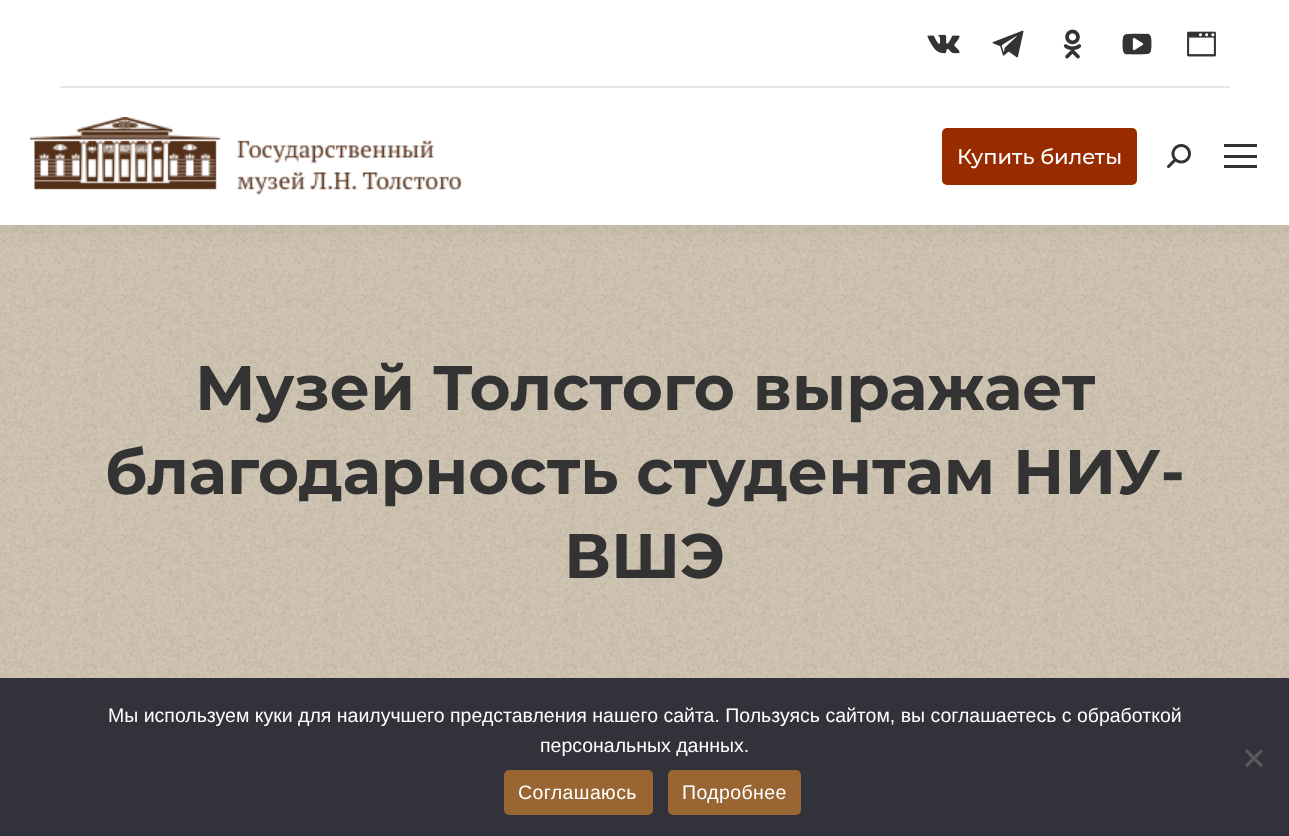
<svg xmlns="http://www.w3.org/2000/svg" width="1289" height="836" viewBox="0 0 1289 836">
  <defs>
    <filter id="blur1" x="-50%" y="-200%" width="200%" height="500%"><feGaussianBlur stdDeviation="11"/></filter>
  </defs>
  <rect width="100%" height="100%" fill="#ffffff"/>
  <image x="0" y="225" width="1289" height="453" href="img1.png"/>
  <rect x="-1" y="-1" width="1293" height="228" fill="#000000" fill-opacity="0.07" filter="url(#blur1)"/>
  <rect x="0" y="0" width="1289" height="225" fill="#ffffff"/>
  <image x="927" y="34" width="33" height="20" href="img2.png"/>
  <image x="992" y="30" width="32" height="28" href="img3.png"/>
  <image x="1063" y="29" width="19" height="30" href="img4.png"/>
  <image x="1122" y="33" width="30" height="22" href="img5.png"/>
  <image x="1187" y="31" width="29" height="26" href="img6.png"/>
  <rect x="60" y="86" width="1170" height="2" fill="#e9e5e2"/>
  <image x="30" y="117" width="432" height="78" href="img7.png"/>
  <rect x="942" y="128" width="195" height="57" rx="5" fill="#982c00"/>
  <text x="957" y="164" font-family="Montserrat" font-size="21" font-weight="500" fill="#ffffff">Купить билеты</text>
  <image x="1167" y="144" width="24" height="24" href="img8.png"/>
  <rect x="1224" y="144" width="33" height="3" fill="#333333"/>
  <rect x="1224" y="155" width="33" height="3" fill="#333333"/>
  <rect x="1224" y="165" width="33" height="3" fill="#333333"/>
  <text x="195" y="410" font-family="Montserrat" font-size="63" font-weight="bold" fill="#333333">Музей Толстого выражает</text>
  <text x="105" y="494" font-family="Montserrat" font-size="63" font-weight="bold" fill="#333333">благодарность студентам НИУ-</text>
  <text x="564" y="578" font-family="Montserrat" font-size="63" font-weight="bold" fill="#333333">ВШЭ</text>
  <rect x="0" y="678" width="1289" height="158" fill="#32323a"/>
  <text x="108" y="722" font-family="Liberation Sans" font-size="19.5" fill="#ffffff">Мы используем куки для наилучшего представления нашего сайта. Пользуясь сайтом, вы соглашаетесь с обработкой</text>
  <text x="540" y="752" font-family="Liberation Sans" font-size="19.5" fill="#ffffff">персональных данных.</text>
  <path d="M1261 749L1263 751.5L1247 767.5L1245 765Z" fill="#59595d"/>
  <path d="M1245 751.5L1247 749L1263 765L1261 767.5Z" fill="#59595d"/>
  <rect x="504" y="770" width="149" height="45" rx="5" fill="#996633"/>
  <text x="518" y="799" font-family="Liberation Sans" font-size="19.5" letter-spacing="0.4" fill="#ffffff">Соглашаюсь</text>
  <rect x="668" y="770" width="133" height="45" rx="5" fill="#996633"/>
  <text x="682" y="799" font-family="Liberation Sans" font-size="19.5" letter-spacing="0.4" fill="#ffffff">Подробнее</text>
</svg>
